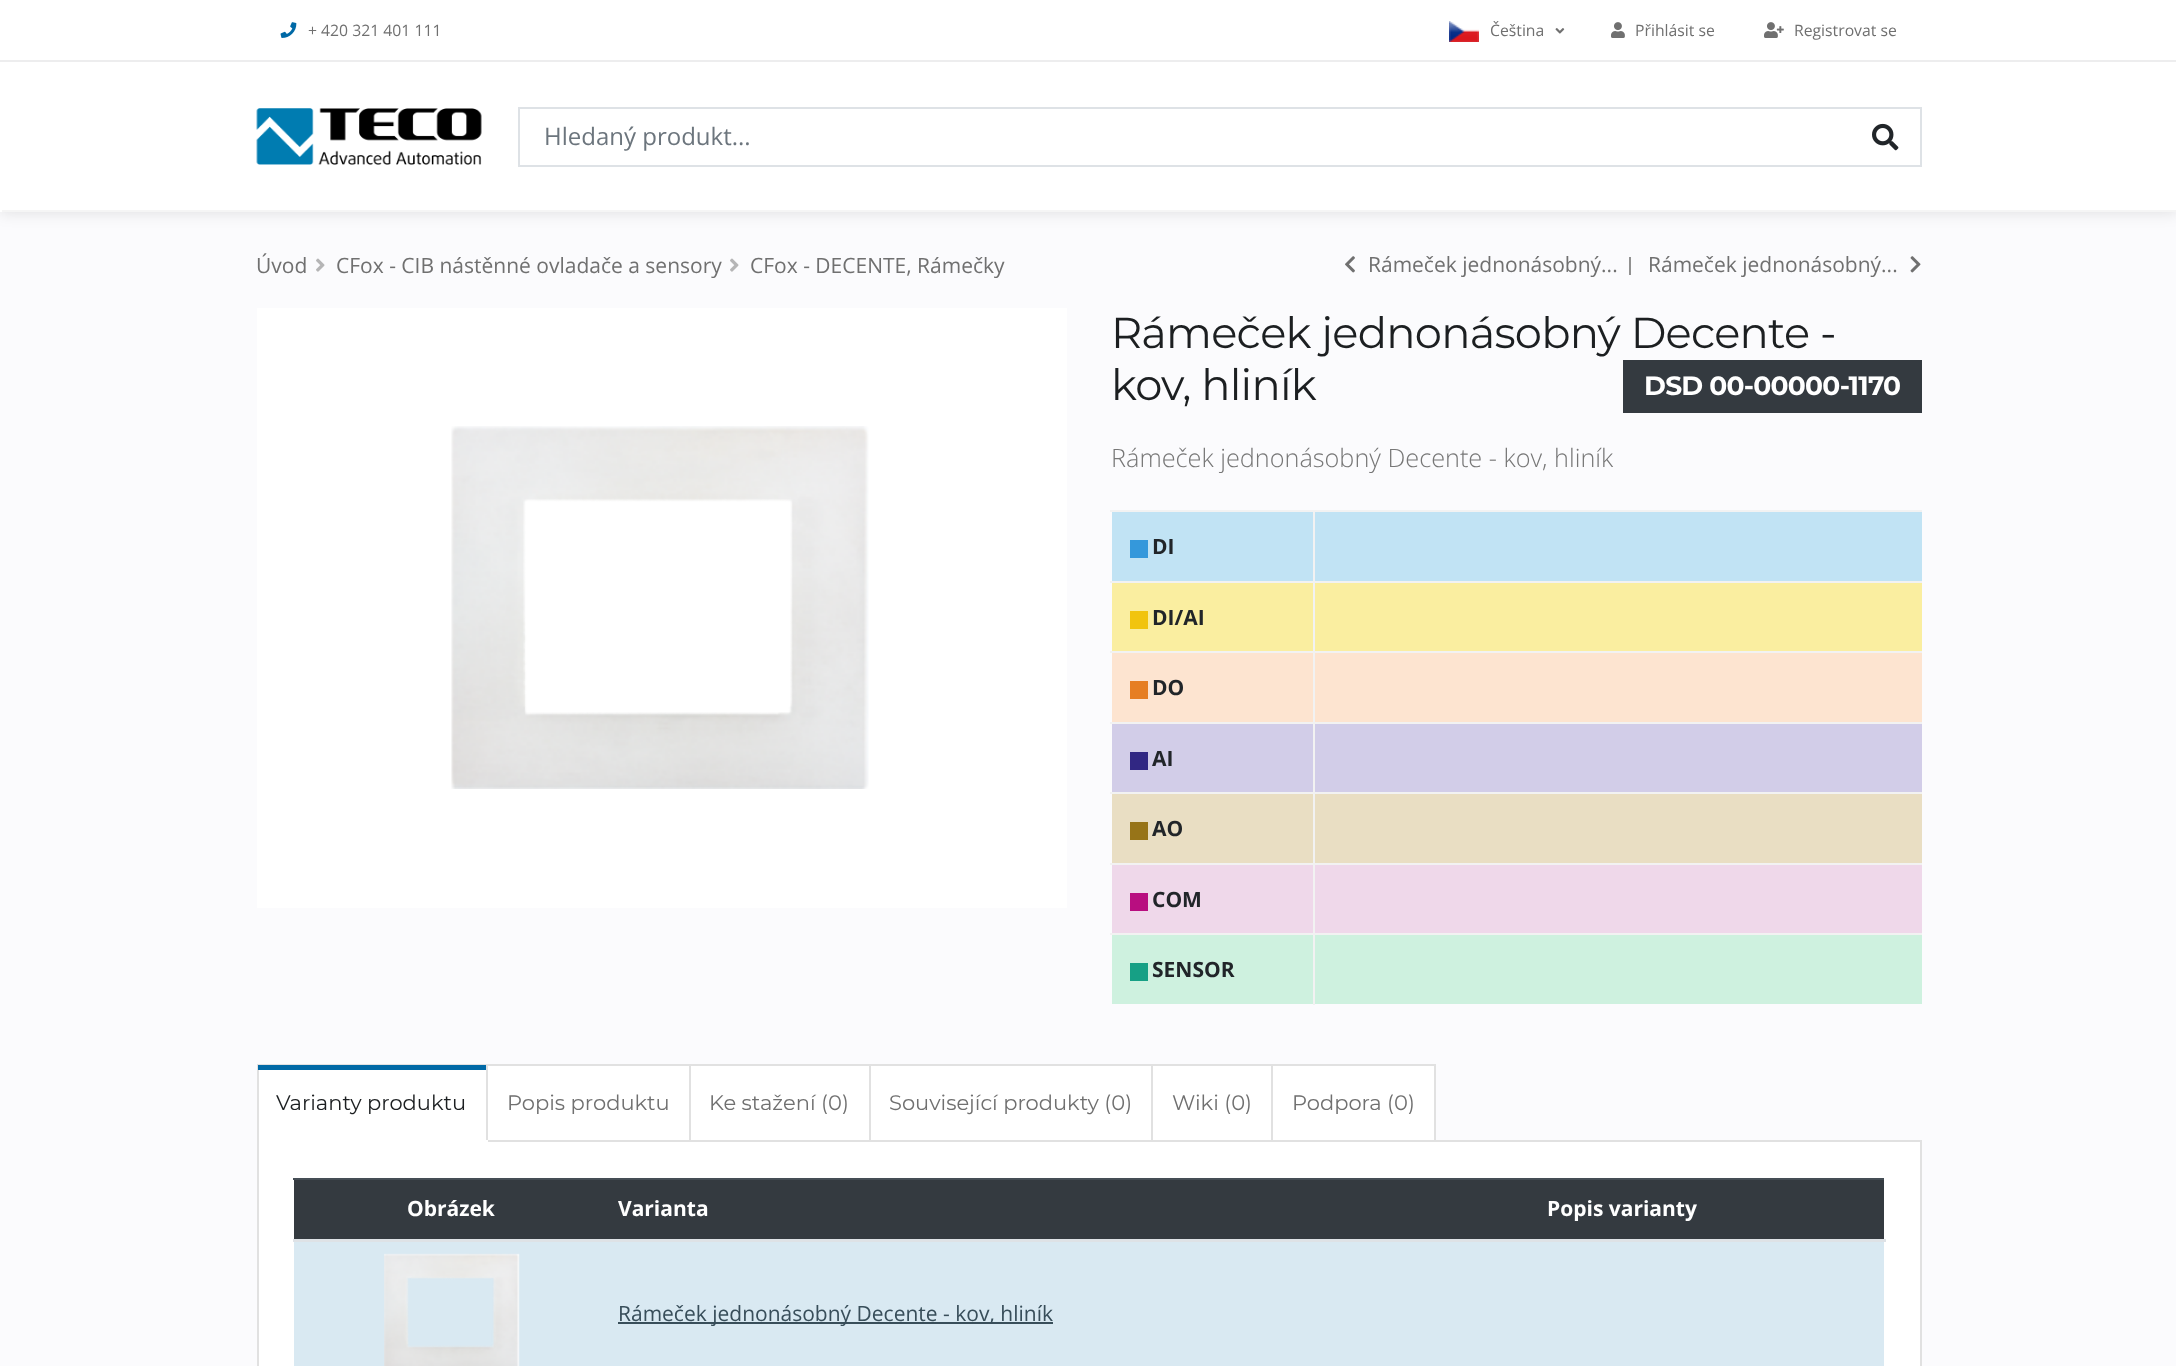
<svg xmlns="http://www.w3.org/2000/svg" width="2176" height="1366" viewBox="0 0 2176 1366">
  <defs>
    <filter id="blur1" x="-50%" y="-200%" width="200%" height="500%"><feGaussianBlur stdDeviation="7.5"/></filter>
  </defs>
  <rect width="100%" height="100%" fill="#fbfbfd"/>
  <rect x="0" y="2" width="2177" height="211" fill="#000000" fill-opacity="0.11" filter="url(#blur1)"/>
  <rect x="0" y="0" width="2176" height="212" fill="#ffffff"/>
  <rect x="0" y="60" width="2176" height="2" fill="#ededee"/>
  <image x="280" y="22" width="17" height="16" href="img1.png"/>
  <text x="308" y="36" font-family="Open Sans" font-size="15.75" fill="#707070">+ 420 321 401 111</text>
  <image x="1449" y="21" width="30" height="21" href="img2.png"/>
  <text x="1490" y="36" font-family="Open Sans" font-size="15.75" fill="#707070">Čeština</text>
  <image x="1555" y="28" width="10" height="6" href="img3.png"/>
  <image x="1611" y="22" width="14" height="16" href="img4.png"/>
  <text x="1635" y="36" font-family="Open Sans" font-size="15.75" fill="#707070">Přihlásit se</text>
  <image x="1764" y="22" width="20" height="16" href="img5.png"/>
  <text x="1794" y="36" font-family="Open Sans" font-size="15.75" fill="#707070">Registrovat se</text>
  <image x="256" y="108" width="226" height="57" href="img6.png"/>
  <rect x="519" y="108" width="1402" height="58" fill="none" stroke="#dee2e6" stroke-width="2"/>
  <text x="544" y="145" font-family="Open Sans" font-size="24" fill="#6c757d">Hledaný produkt...</text>
  <image x="1872" y="123" width="27" height="28" href="img7.png"/>
  <rect x="2" y="210" width="2174" height="2" fill="#f5f5f5"/>
  <text x="256" y="273" font-family="Open Sans" font-size="21" fill="#707070">Úvod</text>
  <image x="316" y="258" width="9" height="14" href="img8.png"/>
  <text x="336" y="273" font-family="Open Sans" font-size="21" fill="#707070">CFox - CIB nástěnné ovladače a sensory</text>
  <image x="730" y="258" width="9" height="14" href="img8.png"/>
  <text x="750" y="273" font-family="Open Sans" font-size="21" fill="#707070">CFox - DECENTE, Rámečky</text>
  <image x="1345" y="256" width="10" height="17" href="img9.png"/>
  <text x="1368" y="272" font-family="Open Sans" font-size="21" fill="#707070">Rámeček jednonásobný...</text>
  <rect x="1629" y="257" width="2" height="18" fill="#919191"/>
  <text x="1648" y="272" font-family="Open Sans" font-size="21" fill="#707070">Rámeček jednonásobný...</text>
  <image x="1910" y="256" width="11" height="17" href="img10.png"/>
  <rect x="257" y="308" width="810" height="600" fill="#ffffff"/>
  <image x="451" y="426" width="418" height="363" href="img11.png"/>
  <text x="1111" y="348" font-family="Montserrat" font-size="43.25" letter-spacing="-0.75" fill="#1c1f21">Rámeček jednonásobný Decente -</text>
  <text x="1111" y="400" font-family="Montserrat" font-size="43.25" letter-spacing="-0.75" fill="#1c1f21">kov, hliník</text>
  <rect x="1623" y="360" width="299" height="53" fill="#343a40"/>
  <text x="1644" y="395" font-family="Montserrat" font-size="26.5" font-weight="bold" letter-spacing="-0.75" fill="#ffffff">DSD 00-00000-1170</text>
  <text x="1111" y="467" font-family="Open Sans" font-size="25.25" font-weight="300" fill="#777777">Rámeček jednonásobný Decente - kov, hliník</text>
  <rect x="1112" y="512" width="810" height="69" fill="#c1e3f4"/>
  <rect x="1110" y="510" width="812" height="2" fill="#f2f2f2"/>
  <rect x="1110" y="581" width="812" height="2" fill="#f2f2f2"/>
  <rect x="1112" y="583" width="810" height="68" fill="#faeea0"/>
  <rect x="1110" y="651" width="812" height="2" fill="#f2f2f2"/>
  <rect x="1112" y="653" width="810" height="69" fill="#fde4d0"/>
  <rect x="1110" y="722" width="812" height="2" fill="#f2f2f2"/>
  <rect x="1112" y="724" width="810" height="68" fill="#d2cde8"/>
  <rect x="1110" y="792" width="812" height="2" fill="#f2f2f2"/>
  <rect x="1112" y="794" width="810" height="69" fill="#e9dec3"/>
  <rect x="1110" y="863" width="812" height="2" fill="#f2f2f2"/>
  <rect x="1112" y="865" width="810" height="68" fill="#efd8ea"/>
  <rect x="1110" y="933" width="812" height="2" fill="#f2f2f2"/>
  <rect x="1112" y="935" width="810" height="69" fill="#cef1df"/>
  <rect x="1313" y="933" width="2" height="72" fill="#f2f2f2"/>
  <rect x="1313" y="863" width="2" height="72" fill="#f2f2f2"/>
  <rect x="1313" y="792" width="2" height="72" fill="#f2f2f2"/>
  <rect x="1313" y="722" width="2" height="72" fill="#f2f2f2"/>
  <rect x="1313" y="651" width="2" height="72" fill="#f2f2f2"/>
  <rect x="1313" y="581" width="2" height="72" fill="#f2f2f2"/>
  <rect x="1313" y="510" width="2" height="72" fill="#f2f2f2"/>
  <rect x="1130" y="540" width="18" height="18" fill="#3498db"/>
  <text x="1152" y="554" font-family="Open Sans" font-size="21" font-weight="bold" fill="#212529">DI</text>
  <rect x="1130" y="611" width="18" height="18" fill="#f1c40f"/>
  <text x="1152" y="625" font-family="Open Sans" font-size="21" font-weight="bold" fill="#212529">DI/AI</text>
  <rect x="1130" y="681" width="18" height="18" fill="#e67e22"/>
  <text x="1152" y="695" font-family="Open Sans" font-size="21" font-weight="bold" fill="#212529">DO</text>
  <rect x="1130" y="752" width="18" height="18" fill="#312783"/>
  <text x="1152" y="766" font-family="Open Sans" font-size="21" font-weight="bold" fill="#212529">AI</text>
  <rect x="1130" y="822" width="18" height="18" fill="#977418"/>
  <text x="1152" y="836" font-family="Open Sans" font-size="21" font-weight="bold" fill="#212529">AO</text>
  <rect x="1130" y="893" width="18" height="18" fill="#b80e80"/>
  <text x="1152" y="907" font-family="Open Sans" font-size="21" font-weight="bold" fill="#212529">COM</text>
  <rect x="1130" y="963" width="18" height="18" fill="#16a085"/>
  <text x="1152" y="977" font-family="Open Sans" font-size="21" font-weight="bold" fill="#212529">SENSOR</text>
  <rect x="259" y="1070" width="227" height="70" fill="#ffffff"/>
  <rect x="257" y="1064" width="231" height="1" fill="#e1e1e1"/>
  <rect x="258" y="1141" width="1663" height="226" fill="#ffffff" stroke="#e1e1e1" stroke-width="2"/>
  <rect x="486" y="1064" width="2" height="78" fill="#e1e1e1"/>
  <rect x="257" y="1140" width="231" height="2" fill="#ffffff"/>
  <rect x="257" y="1064" width="2" height="78" fill="#e1e1e1"/>
  <rect x="258" y="1065" width="228" height="5" fill="#0069a6"/>
  <text x="276" y="1110" font-family="Montserrat" font-size="21" fill="#1c1f21">Varianty produktu</text>
  <rect x="488" y="1066" width="201" height="74" fill="#ffffff"/>
  <rect x="488" y="1064" width="202" height="2" fill="#e1e1e1"/>
  <rect x="689" y="1064" width="2" height="78" fill="#e1e1e1"/>
  <text x="507" y="1110" font-family="Montserrat" font-size="21" fill="#707070">Popis produktu</text>
  <rect x="691" y="1066" width="178" height="74" fill="#ffffff"/>
  <rect x="690" y="1064" width="180" height="2" fill="#e1e1e1"/>
  <rect x="869" y="1064" width="2" height="78" fill="#e1e1e1"/>
  <text x="709" y="1110" font-family="Montserrat" font-size="21" fill="#707070">Ke stažení (0)</text>
  <rect x="871" y="1066" width="280" height="74" fill="#ffffff"/>
  <rect x="870" y="1064" width="282" height="2" fill="#e1e1e1"/>
  <rect x="1151" y="1064" width="2" height="78" fill="#e1e1e1"/>
  <text x="889" y="1110" font-family="Montserrat" font-size="21" fill="#707070">Související produkty (0)</text>
  <rect x="1153" y="1066" width="118" height="74" fill="#ffffff"/>
  <rect x="1152" y="1064" width="120" height="2" fill="#e1e1e1"/>
  <rect x="1271" y="1064" width="2" height="78" fill="#e1e1e1"/>
  <text x="1172" y="1110" font-family="Montserrat" font-size="21" fill="#707070">Wiki (0)</text>
  <rect x="1273" y="1066" width="161" height="74" fill="#ffffff"/>
  <rect x="1272" y="1064" width="164" height="2" fill="#e1e1e1"/>
  <rect x="1434" y="1064" width="2" height="78" fill="#e1e1e1"/>
  <text x="1292" y="1110" font-family="Montserrat" font-size="21" fill="#707070">Podpora (0)</text>
  <rect x="294" y="1180" width="1590" height="59" fill="#343a40"/>
  <text x="407" y="1216" font-family="Open Sans" font-size="21" font-weight="bold" fill="#ffffff">Obrázek</text>
  <text x="618" y="1216" font-family="Open Sans" font-size="21" font-weight="bold" fill="#ffffff">Varianta</text>
  <rect x="293" y="1178" width="1591" height="2" fill="#454d55"/>
  <rect x="293" y="1239" width="1593" height="3" fill="#dee2e6"/>
  <text x="1547" y="1216" font-family="Open Sans" font-size="21" font-weight="bold" fill="#ffffff">Popis varianty</text>
  <rect x="294" y="1242" width="1590" height="124" fill="#d9e9f2"/>
  <image x="384" y="1253" width="136" height="113" href="img12.png"/>
  <rect x="618" y="1322" width="435" height="2" fill="#384e5a"/>
  <text x="618" y="1321" font-family="Open Sans" font-size="21" fill="#384e5a">Rámeček jednonásobný Decente - kov, hliník</text>
</svg>
